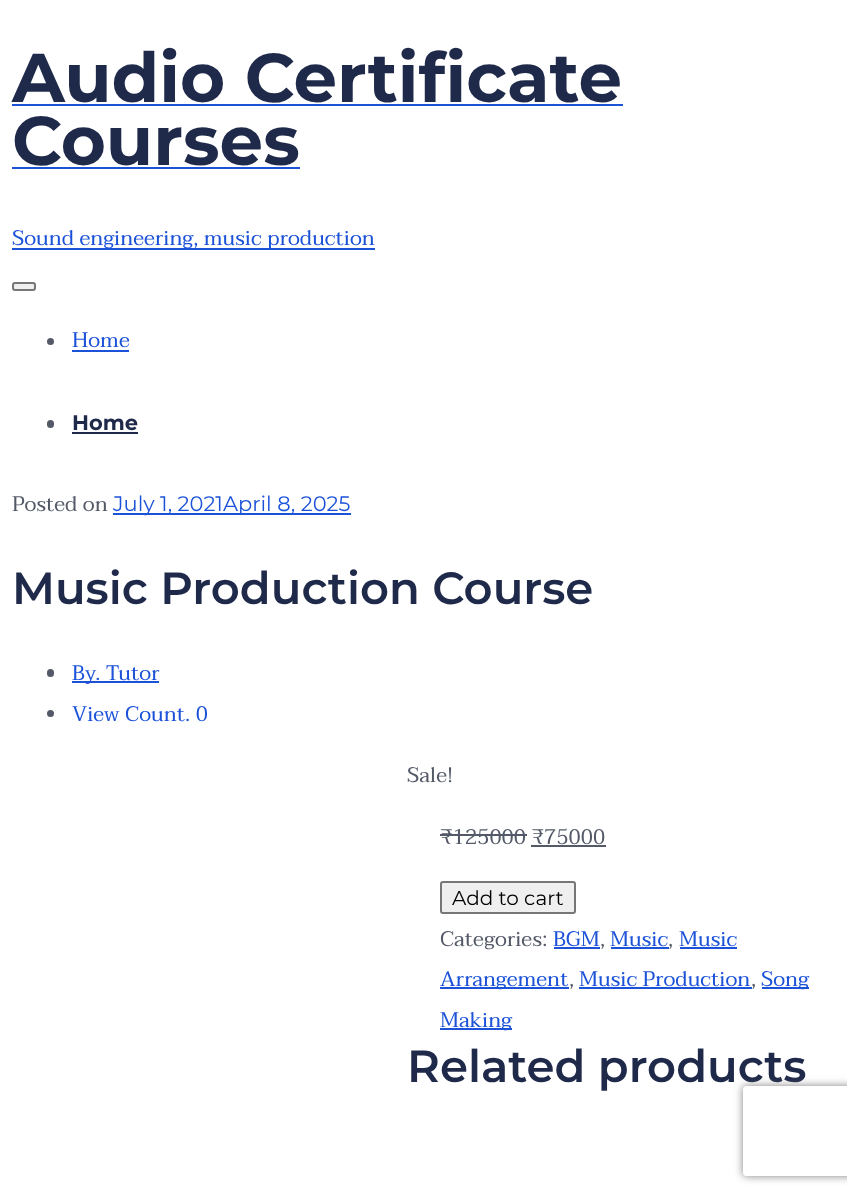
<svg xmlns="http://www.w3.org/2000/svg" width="847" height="1196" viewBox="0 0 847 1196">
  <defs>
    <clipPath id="clip1"><path d="M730 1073H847V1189H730ZM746 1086H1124C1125.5 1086 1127 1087.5 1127 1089V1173C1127 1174.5 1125.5 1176 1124 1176H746C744.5 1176 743 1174.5 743 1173V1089C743 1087.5 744.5 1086 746 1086Z" clip-rule="evenodd"/></clipPath>
    <filter id="blur1" x="-50%" y="-200%" width="200%" height="500%"><feGaussianBlur stdDeviation="4"/></filter>
  </defs>
  <rect width="100%" height="100%" fill="#ffffff"/>
  <text x="12" y="102" font-family="Montserrat" font-size="69" font-weight="bold" fill="#1f2949">Audio Certificate</text>
  <rect x="12" y="104" width="611" height="2" fill="#1b52d8"/>
  <text x="12" y="165" font-family="Montserrat" font-size="69" font-weight="bold" fill="#1f2949">Courses</text>
  <rect x="12" y="167" width="288" height="2" fill="#1b52d8"/>
  <rect x="12" y="248" width="363" height="2" fill="#1b52d8"/>
  <text x="12" y="245" font-family="Taviraj" font-size="21" fill="#1b52d8">Sound engineering, music production</text>
  <rect x="13" y="283" width="22" height="7" rx="2" fill="#efefef" stroke="#767676" stroke-width="2"/>
  <circle cx="50.5" cy="341.5" r="3.5" fill="#535967"/>
  <text x="72" y="347" font-family="Taviraj" font-size="21" fill="#1b52d8">Home</text>
  <rect x="72" y="350" width="57" height="2" fill="#1b52d8"/>
  <rect x="47" y="420" width="7" height="8" rx="3.5" fill="#535967"/>
  <text x="72" y="430" font-family="Montserrat" font-size="21" font-weight="bold" fill="#1f2949">Home</text>
  <rect x="72" y="432" width="66" height="2" fill="#1f2949"/>
  <text x="12" y="511" font-family="Taviraj" font-size="21" fill="#535967">Posted on</text>
  <rect x="113" y="513" width="238" height="2" fill="#1b52d8"/>
  <text x="113" y="511" font-family="Montserrat" font-size="21" fill="#1b52d8">July 1, 2021April 8, 2025</text>
  <text x="12" y="604" font-family="Montserrat" font-size="45" font-weight="600" fill="#1f2949">Music Production Course</text>
  <rect x="47" y="669" width="7" height="8" rx="3.5" fill="#535967"/>
  <rect x="72" y="681" width="87" height="2" fill="#1b52d8"/>
  <text x="72" y="680" font-family="Taviraj" font-size="21" fill="#1b52d8">By. Tutor</text>
  <circle cx="50.5" cy="713.5" r="3.5" fill="#535967"/>
  <text x="72" y="721" font-family="Taviraj" font-size="21" fill="#1b52d8">View Count. 0</text>
  <text x="407" y="782" font-family="Taviraj" font-size="21" fill="#535967">Sale!</text>
  <text x="440" y="844" font-family="Taviraj" font-size="21" fill="#535967">₹125000 ₹75000</text>
  <rect x="440" y="834" width="87" height="2" fill="#535967"/>
  <rect x="531" y="845" width="75" height="2" fill="#535967"/>
  <rect x="441" y="882" width="134" height="31" rx="2" fill="#efefef" stroke="#767676" stroke-width="2"/>
  <text x="452" y="905" font-family="Montserrat" font-size="20" fill="#000000">Add to cart</text>
  <text x="440" y="946" font-family="Taviraj" font-size="21" fill="#535967">Categories:</text>
  <text x="553" y="946" font-family="Taviraj" font-size="21" fill="#1b52d8">BGM</text>
  <text x="600" y="946" font-family="Taviraj" font-size="21" fill="#535967">,</text>
  <rect x="554" y="947" width="46" height="2" fill="#1b52d8"/>
  <text x="610" y="946" font-family="Taviraj" font-size="21" fill="#1b52d8">Music</text>
  <text x="668" y="946" font-family="Taviraj" font-size="21" fill="#535967">,</text>
  <rect x="611" y="947" width="58" height="2" fill="#1b52d8"/>
  <rect x="680" y="947" width="57" height="2" fill="#1b52d8"/>
  <text x="679" y="946" font-family="Taviraj" font-size="21" fill="#1b52d8">Music</text>
  <rect x="440" y="987" width="129" height="2" fill="#1b52d8"/>
  <text x="440" y="986" font-family="Taviraj" font-size="21" fill="#1b52d8">Arrangement</text>
  <text x="569" y="986" font-family="Taviraj" font-size="21" fill="#535967">,</text>
  <text x="579" y="986" font-family="Taviraj" font-size="21" fill="#1b52d8">Music Production</text>
  <text x="751" y="986" font-family="Taviraj" font-size="21" fill="#535967">,</text>
  <rect x="579" y="987" width="173" height="2" fill="#1b52d8"/>
  <rect x="762" y="987" width="47" height="2" fill="#1b52d8"/>
  <text x="761" y="986" font-family="Taviraj" font-size="21" fill="#1b52d8">Song</text>
  <rect x="440" y="1028" width="72" height="2" fill="#1b52d8"/>
  <text x="440" y="1027" font-family="Taviraj" font-size="21" fill="#1b52d8">Making</text>
  <text x="407" y="1082" font-family="Montserrat" font-size="45" font-weight="600" fill="#1f2949">Related products</text>
  <g clip-path="url(#clip1)">
    <rect x="743" y="1086" width="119" height="90" rx="3" fill="#808080" filter="url(#blur1)"/>
  </g>
</svg>
